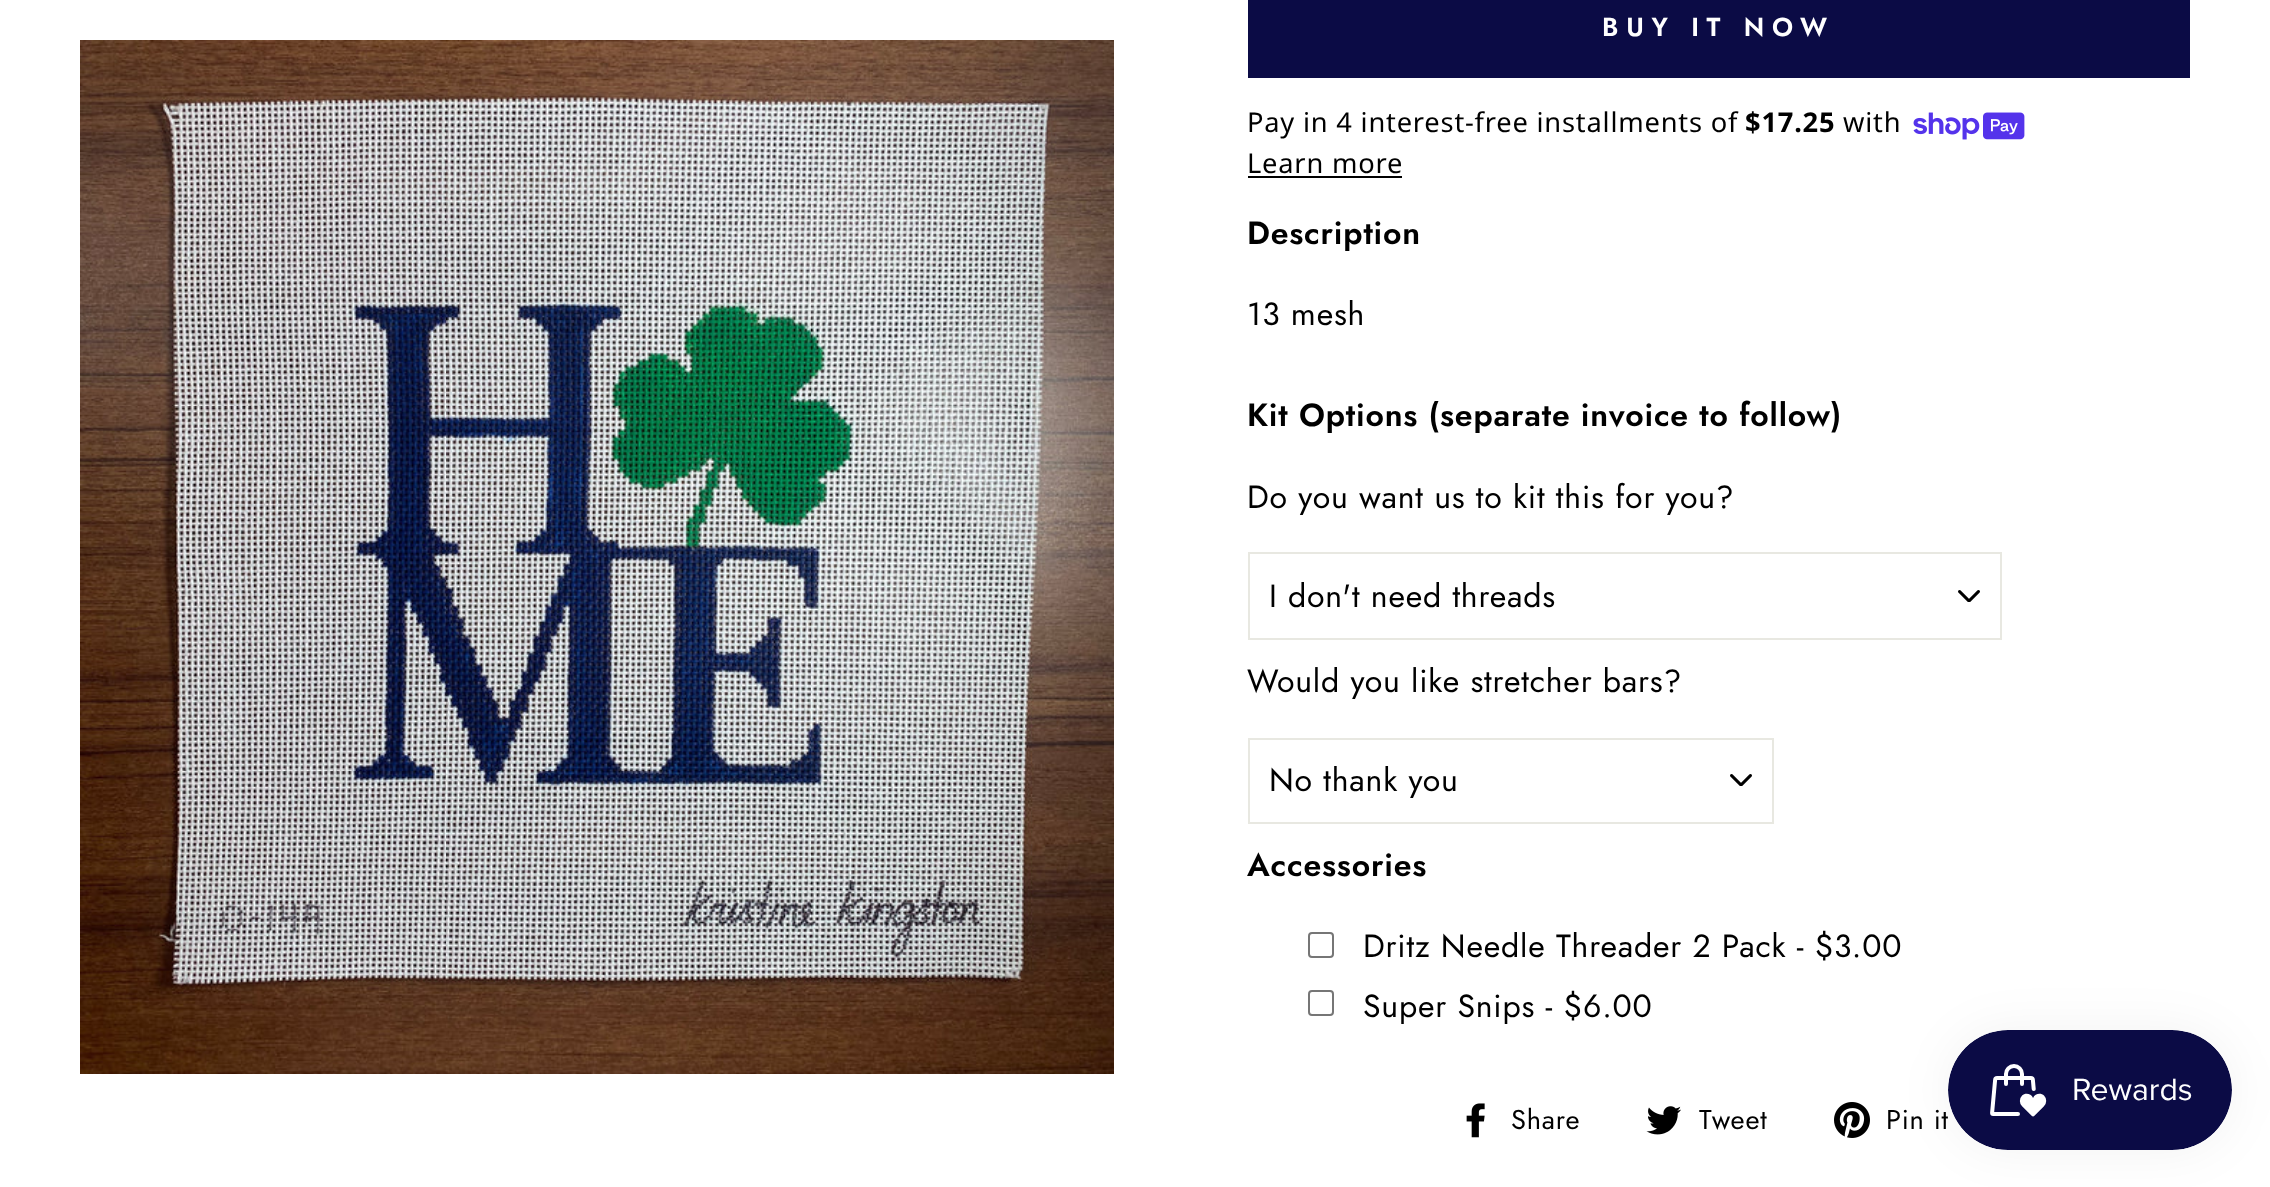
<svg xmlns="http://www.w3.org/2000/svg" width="2270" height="1187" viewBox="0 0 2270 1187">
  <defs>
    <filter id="blur1" x="-50%" y="-200%" width="200%" height="500%"><feGaussianBlur stdDeviation="25"/></filter>
  </defs>
  <rect width="100%" height="100%" fill="#ffffff"/>
  <image x="80" y="40" width="1034" height="1034" href="img1.png"/>
  <rect x="1248" y="0" width="942" height="78" fill="#0b0b45"/>
  <text x="1602" y="36" font-family="Jost" font-size="26" font-weight="600" letter-spacing="7.75" fill="#ffffff">BUY IT NOW</text>
  <text x="1247" y="132" font-family="Noto Sans" font-size="27.25" letter-spacing="0.8" fill="#000000">Pay in 4 interest-free installments of</text>
  <text x="1745" y="132" font-family="Noto Sans" font-size="27.25" font-weight="bold" letter-spacing="0.8" fill="#000000">$17.25</text>
  <text x="1843" y="132" font-family="Noto Sans" font-size="27.25" letter-spacing="0.8" fill="#000000">with</text>
  <image x="1913" y="112" width="112" height="28" href="img2.png"/>
  <text x="1247" y="173" font-family="Noto Sans" font-size="27.25" letter-spacing="0.8" fill="#000000">Learn more</text>
  <rect x="1248" y="176" width="154" height="2" fill="#000000"/>
  <text x="1247" y="244" font-family="Jost" font-size="32" font-weight="600" letter-spacing="0.8" fill="#000000">Description</text>
  <text x="1247" y="325" font-family="Jost" font-size="32" letter-spacing="0.8" fill="#000000">13 mesh</text>
  <text x="1247" y="426" font-family="Jost" font-size="32" font-weight="600" letter-spacing="0.8" fill="#000000">Kit Options (separate invoice to follow)</text>
  <text x="1247" y="508" font-family="Jost" font-size="32" letter-spacing="0.8" fill="#000000">Do you want us to kit this for you?</text>
  <image x="1958" y="590" width="22" height="12" href="img3.png"/>
  <rect x="1249" y="553" width="752" height="86" fill="none" stroke="#e8e8e1" stroke-width="2"/>
  <text x="1269" y="607" font-family="Jost" font-size="32" letter-spacing="0.8" fill="#000000">I don't need threads</text>
  <text x="1247" y="692" font-family="Jost" font-size="32" letter-spacing="0.8" fill="#000000">Would you like stretcher bars?</text>
  <image x="1730" y="774" width="22" height="12" href="img3.png"/>
  <rect x="1249" y="739" width="524" height="84" fill="none" stroke="#e8e8e1" stroke-width="2"/>
  <text x="1269" y="791" font-family="Jost" font-size="32" letter-spacing="0.8" fill="#000000">No thank you</text>
  <text x="1247" y="876" font-family="Jost" font-size="32" font-weight="600" letter-spacing="0.8" fill="#000000">Accessories</text>
  <rect x="1309" y="933" width="24" height="24" rx="3" fill="none" stroke="#767676" stroke-width="2"/>
  <text x="1363" y="957" font-family="Jost" font-size="32" letter-spacing="0.8" fill="#000000">Dritz Needle Threader 2 Pack - $3.00</text>
  <rect x="1309" y="991" width="24" height="24" rx="3" fill="none" stroke="#767676" stroke-width="2"/>
  <text x="1363" y="1017" font-family="Jost" font-size="32" letter-spacing="0.8" fill="#000000">Super Snips - $6.00</text>
  <image x="1466" y="1103" width="19" height="35" href="img4.png"/>
  <text x="1511" y="1129" font-family="Jost" font-size="27.25" letter-spacing="0.8" fill="#000000">Share</text>
  <image x="1646" y="1106" width="35" height="29" href="img5.png"/>
  <text x="1699" y="1129" font-family="Jost" font-size="27.25" letter-spacing="0.8" fill="#000000">Tweet</text>
  <image x="1834" y="1102" width="36" height="36" href="img6.png"/>
  <text x="1886" y="1129" font-family="Jost" font-size="27.25" letter-spacing="0.8" fill="#000000">Pin it</text>
  <rect x="1948" y="1030" width="284" height="120" rx="60" fill="#000000" fill-opacity="0.05" filter="url(#blur1)"/>
  <image x="1948" y="1030" width="284" height="120" href="img7.png"/>
</svg>
